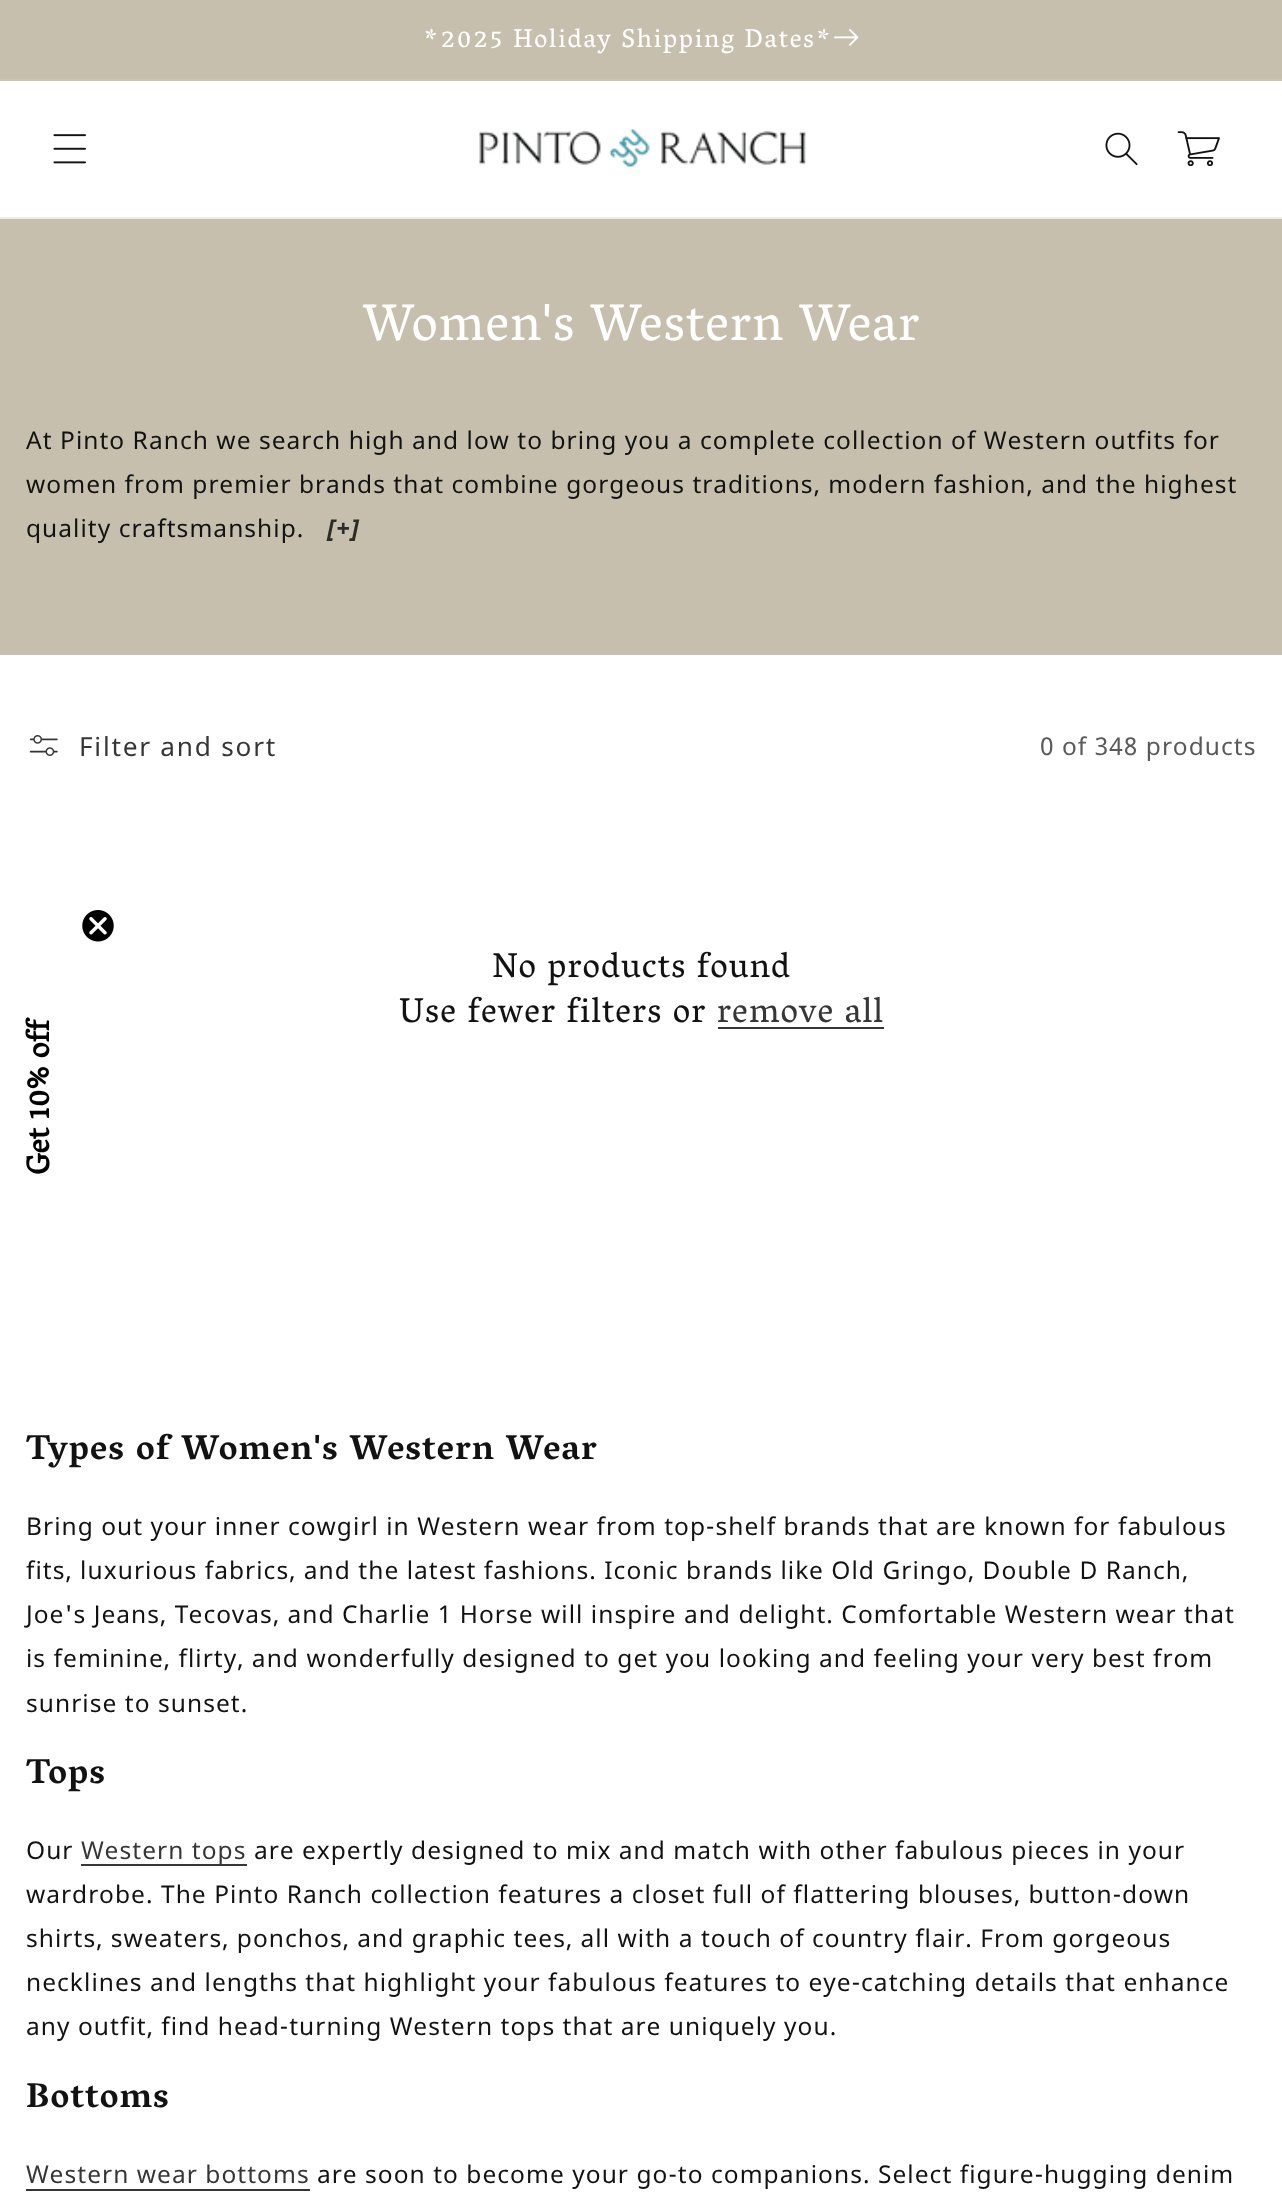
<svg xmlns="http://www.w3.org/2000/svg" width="1282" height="2193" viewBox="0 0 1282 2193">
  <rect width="100%" height="100%" fill="#ffffff"/>
  <rect x="0" y="0" width="1282" height="79" fill="#c6bfad"/>
  <rect x="0" y="79" width="1282" height="2" fill="#cbc4b4"/>
  <text x="423" y="47" font-family="Vesper Libre" font-size="26.25" letter-spacing="1.75" fill="#ffffff">*2025 Holiday Shipping Dates*</text>
  <image x="834" y="29" width="25" height="17" href="img1.png"/>
  <rect x="0" y="217" width="1282" height="2" fill="#ececec"/>
  <image x="53" y="134" width="33" height="30" href="img2.png"/>
  <image x="479" y="129" width="327" height="38" href="img3.png"/>
  <image x="1105" y="132" width="33" height="34" href="img4.png"/>
  <image x="1177" y="131" width="43" height="35" href="img5.png"/>
  <rect x="0" y="219" width="1282" height="436" fill="#c6bfad"/>
  <text x="363" y="340" font-family="Vesper Libre" font-size="52.5" letter-spacing="1.05" fill="#ffffff">Women's Western Wear</text>
  <text x="26" y="449" font-family="Noto Sans" font-size="24.5" letter-spacing="1.05" fill="#121212">At Pinto Ranch we search high and low to bring you a complete collection of Western outfits for</text>
  <text x="26" y="493" font-family="Noto Sans" font-size="24.5" letter-spacing="1.05" fill="#121212">women from premier brands that combine gorgeous traditions, modern fashion, and the highest</text>
  <text x="26" y="537" font-family="Noto Sans" font-size="24.5" letter-spacing="1.05" fill="#121212">quality craftsmanship.</text>
  <text x="327" y="537" font-family="Noto Sans" font-size="24.5" font-weight="bold" font-style="italic" letter-spacing="1.05" fill="#2d2c29">[+]</text>
  <image x="29" y="735" width="29" height="21" href="img6.png"/>
  <text x="79" y="756" font-family="Noto Sans" font-size="26.25" letter-spacing="1.75" fill="#363636">Filter and sort</text>
  <text x="1040" y="755" font-family="Noto Sans" font-size="24.5" letter-spacing="1.05" fill="#595959">0 of 348 products</text>
  <text x="492" y="977" font-family="Vesper Libre" font-size="35" letter-spacing="1.05" fill="#121212">No products found</text>
  <text x="399" y="1022" font-family="Vesper Libre" font-size="35" letter-spacing="1.05" fill="#121212">Use fewer filters or</text>
  <text x="717" y="1022" font-family="Vesper Libre" font-size="35" letter-spacing="1.05" fill="#363636">remove all</text>
  <rect x="718" y="1027" width="166" height="2" fill="#363636"/>
  <text x="26" y="1459" font-family="Vesper Libre" font-size="35" font-weight="bold" letter-spacing="1.05" fill="#121212">Types of Women's Western Wear</text>
  <text x="26" y="1535" font-family="Noto Sans" font-size="24.5" letter-spacing="1.05" fill="#121212">Bring out your inner cowgirl in Western wear from top-shelf brands that are known for fabulous</text>
  <text x="26" y="1579" font-family="Noto Sans" font-size="24.5" letter-spacing="1.05" fill="#121212">fits, luxurious fabrics, and the latest fashions. Iconic brands like Old Gringo, Double D Ranch,</text>
  <text x="26" y="1623" font-family="Noto Sans" font-size="24.5" letter-spacing="1.05" fill="#121212">Joe's Jeans, Tecovas, and Charlie 1 Horse will inspire and delight. Comfortable Western wear that</text>
  <text x="26" y="1667" font-family="Noto Sans" font-size="24.5" letter-spacing="1.05" fill="#121212">is feminine, flirty, and wonderfully designed to get you looking and feeling your very best from</text>
  <text x="26" y="1712" font-family="Noto Sans" font-size="24.5" letter-spacing="1.05" fill="#121212">sunrise to sunset.</text>
  <text x="26" y="1783" font-family="Vesper Libre" font-size="35" font-weight="bold" letter-spacing="1.05" fill="#121212">Tops</text>
  <text x="26" y="1859" font-family="Noto Sans" font-size="24.5" letter-spacing="1.05" fill="#121212">Our</text>
  <rect x="81" y="1864" width="166" height="2" fill="#363636"/>
  <text x="81" y="1859" font-family="Noto Sans" font-size="24.5" letter-spacing="1.05" fill="#363636">Western tops</text>
  <text x="254" y="1859" font-family="Noto Sans" font-size="24.5" letter-spacing="1.05" fill="#121212">are expertly designed to mix and match with other fabulous pieces in your</text>
  <text x="26" y="1903" font-family="Noto Sans" font-size="24.5" letter-spacing="1.05" fill="#121212">wardrobe. The Pinto Ranch collection features a closet full of flattering blouses, button-down</text>
  <text x="26" y="1947" font-family="Noto Sans" font-size="24.5" letter-spacing="1.05" fill="#121212">shirts, sweaters, ponchos, and graphic tees, all with a touch of country flair. From gorgeous</text>
  <text x="26" y="1991" font-family="Noto Sans" font-size="24.5" letter-spacing="1.05" fill="#121212">necklines and lengths that highlight your fabulous features to eye-catching details that enhance</text>
  <text x="26" y="2035" font-family="Noto Sans" font-size="24.5" letter-spacing="1.05" fill="#121212">any outfit, find head-turning Western tops that are uniquely you.</text>
  <text x="26" y="2107" font-family="Vesper Libre" font-size="35" font-weight="bold" letter-spacing="1.05" fill="#121212">Bottoms</text>
  <text x="26" y="2183" font-family="Noto Sans" font-size="24.5" letter-spacing="1.05" fill="#363636">Western wear bottoms</text>
  <rect x="26" y="2189" width="284" height="2" fill="#363636"/>
  <text x="317" y="2183" font-family="Noto Sans" font-size="24.5" letter-spacing="1.05" fill="#121212">are soon to become your go-to companions. Select figure-hugging denim</text>
  <image x="82" y="910" width="32" height="32" href="img7.png"/>
  <text x="49" y="1175" transform="rotate(-90 49 1175)" font-family="'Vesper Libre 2'" font-size="31.5" font-weight="bold" fill="#000000">Get 10% off</text>
</svg>
